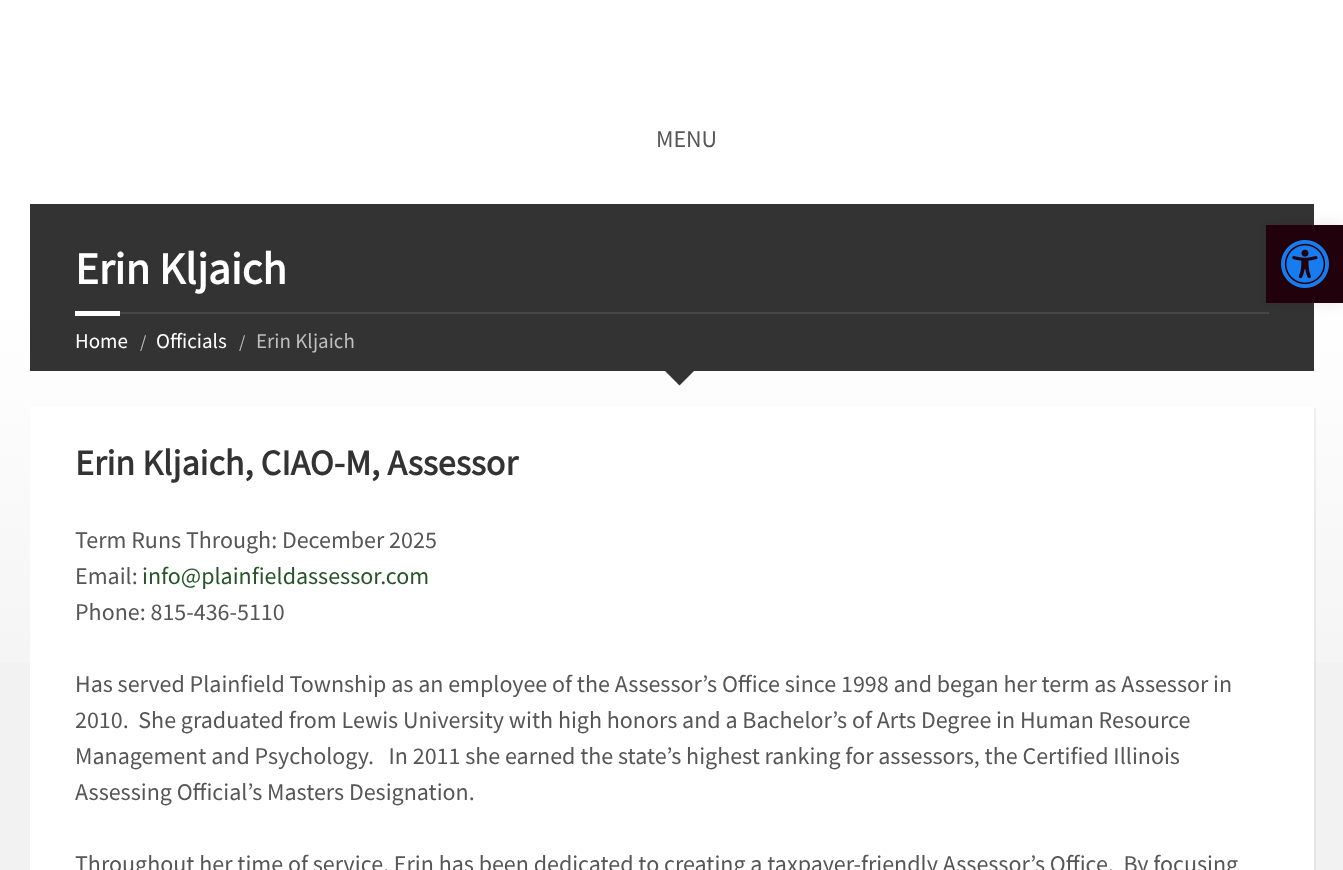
<svg xmlns="http://www.w3.org/2000/svg" width="1343" height="870" viewBox="0 0 1343 870">
  <defs>
    <linearGradient id="g1" gradientUnits="userSpaceOnUse" x1="672" y1="300" x2="672" y2="750"><stop offset="0" stop-color="#ffffff"/><stop offset="1" stop-color="#f2f2f2"/></linearGradient>
    <filter id="blur1" x="-50%" y="-200%" width="200%" height="500%"><feGaussianBlur stdDeviation="7.5"/></filter>
  </defs>
  <rect width="100%" height="100%" fill="#f2f2f2"/>
  <rect x="0" y="0" width="1343" height="300" fill="#ffffff"/>
  <rect x="0" y="300" width="1343" height="363" fill="url(#g1)"/>
  <text x="656" y="147" font-family="Source Sans Pro" font-size="24" fill="#565656">MENU</text>
  <rect x="30" y="204" width="1284" height="167" fill="#333333"/>
  <rect x="120" y="312" width="1149" height="2" fill="#474747"/>
  <text x="75" y="284" font-family="Source Sans Pro" font-size="45" font-weight="bold" fill="#ffffff">Erin Kljaich</text>
  <rect x="75" y="311" width="45" height="5" fill="#ffffff"/>
  <text x="75" y="348" font-family="Source Sans Pro" font-size="21" fill="#ffffff">Home</text>
  <text x="140" y="348" font-family="Source Sans Pro" font-size="18" fill="#bebebe">/</text>
  <text x="156" y="348" font-family="Source Sans Pro" font-size="21" fill="#ffffff">Officials</text>
  <text x="239" y="348" font-family="Source Sans Pro" font-size="18" fill="#bebebe">/</text>
  <text x="256" y="348" font-family="Source Sans Pro" font-size="21" fill="#bebebe">Erin Kljaich</text>
  <path d="M664.5 370.5H694.5L679.5 385.5Z" fill="#333333"/>
  <path d="M32 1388V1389H1316V408H1314V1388Z" fill="#000000" fill-opacity="0.05"/>
  <rect x="30" y="407" width="1284" height="463" fill="#ffffff"/>
  <text x="75" y="475" font-family="Source Sans Pro" font-size="36" font-weight="bold" fill="#333333">Erin Kljaich, CIAO-M, Assessor</text>
  <text x="75" y="548" font-family="Source Sans Pro" font-size="24" fill="#565656">Term Runs Through: December 2025</text>
  <text x="75" y="584" font-family="Source Sans Pro" font-size="24" fill="#565656">Email:</text>
  <text x="142" y="584" font-family="Source Sans Pro" font-size="24" fill="#255527">info@plainfieldassessor.com</text>
  <text x="75" y="620" font-family="Source Sans Pro" font-size="24" fill="#565656">Phone: 815-436-5110</text>
  <text x="75" y="692" font-family="Source Sans Pro" font-size="24" fill="#565656">Has served Plainfield Township as an employee of the Assessor’s Office since 1998 and began her term as Assessor in</text>
  <text x="75" y="728" font-family="Source Sans Pro" font-size="24" fill="#565656" xml:space="preserve">2010.  She graduated from Lewis University with high honors and a Bachelor’s of Arts Degree in Human Resource</text>
  <text x="75" y="764" font-family="Source Sans Pro" font-size="24" fill="#565656" xml:space="preserve">Management and Psychology.   In 2011 she earned the state’s highest ranking for assessors, the Certified Illinois</text>
  <text x="75" y="800" font-family="Source Sans Pro" font-size="24" fill="#565656">Assessing Official’s Masters Designation.</text>
  <text x="75" y="872" font-family="Source Sans Pro" font-size="24" fill="#565656" xml:space="preserve">Throughout her time of service, Erin has been dedicated to creating a taxpayer-friendly Assessor’s Office.  By focusing</text>
  <rect x="1266" y="225" width="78" height="78" fill="#000000" fill-opacity="0.1" filter="url(#blur1)"/>
  <rect x="1266" y="225" width="77" height="78" fill="#21010b"/>
  <image x="1281" y="240" width="48" height="48" href="img1.png"/>
</svg>
